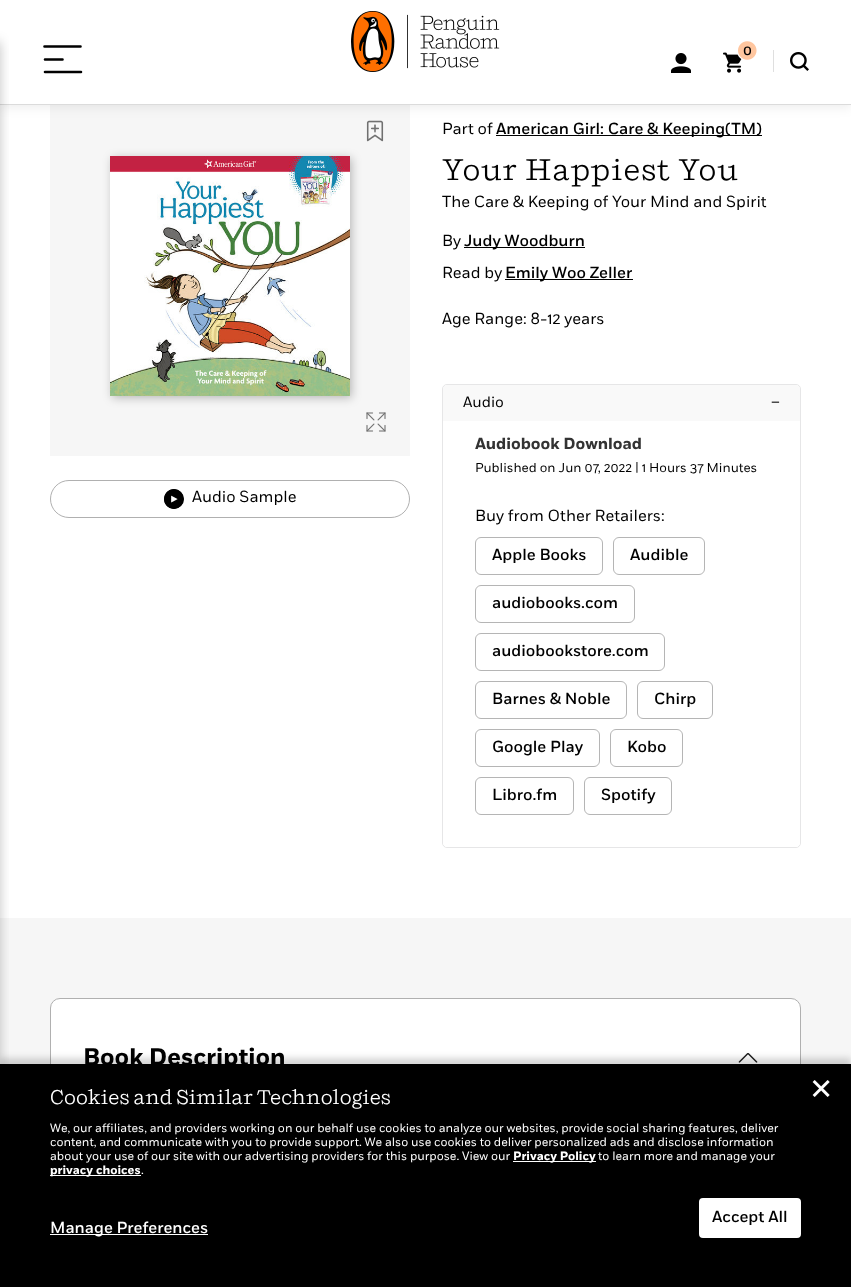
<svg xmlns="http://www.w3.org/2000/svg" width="851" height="1287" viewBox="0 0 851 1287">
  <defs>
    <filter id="blur1" x="-50%" y="-200%" width="200%" height="500%"><feGaussianBlur stdDeviation="6"/></filter>
    <filter id="blur2" x="-50%" y="-200%" width="200%" height="500%"><feGaussianBlur stdDeviation="5"/></filter>
    <filter id="blur3" x="-50%" y="-200%" width="200%" height="500%"><feGaussianBlur stdDeviation="3"/></filter>
  </defs>
  <rect width="100%" height="100%" fill="#ffffff"/>
  <rect x="50" y="105" width="360" height="351" fill="#f6f6f6"/>
  <image x="366" y="120" width="18" height="22" href="img5.png"/>
  <rect x="0" y="-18" width="851" height="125" fill="#000000" fill-opacity="0.08" filter="url(#blur1)"/>
  <rect x="0" y="0" width="851" height="104" fill="#ffffff"/>
  <rect x="0" y="104" width="851" height="1" fill="#dbdbdb"/>
  <rect x="0" y="918" width="851" height="146" fill="#f6f6f6"/>
  <rect x="-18" y="42" width="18" height="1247" fill="#000000" fill-opacity="0.24" filter="url(#blur1)"/>
  <path d="M44.5 46.5H80.5M45 59.5H62.5M45 72H81" fill="none" stroke="#000000" stroke-width="2.6" stroke-linecap="round"/>
  <image x="351" y="11" width="149" height="61" href="img1.png"/>
  <image x="671" y="53" width="20" height="20" href="img2.png"/>
  <image x="723" y="41" width="34" height="32" href="img3.png"/>
  <text x="743" y="55" font-family="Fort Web" font-size="14" font-weight="500" fill="#000000">0</text>
  <rect x="773" y="50" width="1" height="22" fill="#dfdfdf"/>
  <image x="790" y="52" width="19" height="19" href="img4.png"/>
  <rect x="112" y="158" width="240" height="240" fill="#000000" fill-opacity="0.25" filter="url(#blur2)"/>
  <image x="110" y="156" width="240" height="240" href="img6.png"/>
  <image x="366" y="412" width="20" height="20" href="img7.png"/>
  <rect x="50.5" y="480.5" width="359" height="37" rx="18.5" fill="none" stroke="#b0b0b0"/>
  <circle cx="174" cy="499" r="10" fill="#000000"/>
  <image x="164" y="489" width="20" height="20" href="img8.png"/>
  <text x="192" y="502" font-family="Fort Web" font-size="16" fill="#000000">Audio Sample</text>
  <text x="442" y="134" font-family="Fort Web" font-size="16" fill="#000000">Part of</text>
  <rect x="496" y="135" width="266" height="1" fill="#000000"/>
  <text x="496" y="134" font-family="Fort Web" font-size="16" font-weight="500" fill="#000000">American Girl: Care &amp; Keeping(TM)</text>
  <text x="442" y="180" font-family="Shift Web" font-size="30" letter-spacing="1" fill="#000000">Your Happiest You</text>
  <text x="442" y="207" font-family="Fort Web" font-size="16" fill="#000000">The Care &amp; Keeping of Your Mind and Spirit</text>
  <text x="442" y="246" font-family="Fort Web" font-size="16" fill="#000000">By</text>
  <rect x="464" y="247" width="121" height="1" fill="#000000"/>
  <text x="464" y="246" font-family="Fort Web" font-size="16" font-weight="500" fill="#000000">Judy Woodburn</text>
  <text x="442" y="278" font-family="Fort Web" font-size="16" fill="#000000">Read by</text>
  <rect x="505" y="279" width="128" height="1" fill="#000000"/>
  <text x="505" y="278" font-family="Fort Web" font-size="16" font-weight="500" fill="#000000">Emily Woo Zeller</text>
  <text x="442" y="324" font-family="Fort Web" font-size="16" fill="#000000">Age Range: 8-12 years</text>
  <rect x="442.5" y="384.5" width="358" height="463" rx="4.5" fill="none" stroke="#e6e6e7"/>
  <path d="M447 385H796C798 385 800 387 800 389V421H443V389C443 387 445 385 447 385Z" fill="#f9f9f9"/>
  <text x="463" y="407" font-family="Fort Web" font-size="15" fill="#000000">Audio</text>
  <text x="771" y="406" font-family="Fort Web" font-size="15" fill="#000000">–</text>
  <path d="M443 421H800V843C800 845 798 847 796 847H447C445 847 443 845 443 843Z" fill="#ffffff"/>
  <text x="475" y="449" font-family="Fort Web" font-size="16" font-weight="bold" fill="#333333">Audiobook Download</text>
  <text x="475" y="472" font-family="Fort Web" font-size="13" fill="#000000">Published on Jun 07, 2022 | 1 Hours 37 Minutes</text>
  <text x="475" y="521" font-family="Fort Web" font-size="16" fill="#000000">Buy from Other Retailers:</text>
  <rect x="475.5" y="537.5" width="127" height="37" rx="5.5" fill="none" stroke="#b5b5b5"/>
  <text x="492" y="560" font-family="Fort Web" font-size="16" font-weight="500" fill="#000000">Apple Books</text>
  <rect x="613.5" y="537.5" width="91" height="37" rx="5.5" fill="none" stroke="#b5b5b5"/>
  <text x="630" y="560" font-family="Fort Web" font-size="16" font-weight="500" fill="#000000">Audible</text>
  <rect x="475.5" y="585.5" width="159" height="37" rx="5.5" fill="none" stroke="#b5b5b5"/>
  <text x="492" y="608" font-family="Fort Web" font-size="16" font-weight="500" fill="#000000">audiobooks.com</text>
  <rect x="475.5" y="633.5" width="189" height="37" rx="5.5" fill="none" stroke="#b5b5b5"/>
  <text x="492" y="656" font-family="Fort Web" font-size="16" font-weight="500" fill="#000000">audiobookstore.com</text>
  <rect x="475.5" y="681.5" width="151" height="37" rx="5.5" fill="none" stroke="#b5b5b5"/>
  <text x="492" y="704" font-family="Fort Web" font-size="16" font-weight="500" fill="#000000">Barnes &amp; Noble</text>
  <rect x="637.5" y="681.5" width="75" height="37" rx="5.5" fill="none" stroke="#b5b5b5"/>
  <text x="654" y="704" font-family="Fort Web" font-size="16" font-weight="500" fill="#000000">Chirp</text>
  <rect x="475.5" y="729.5" width="124" height="37" rx="5.5" fill="none" stroke="#b5b5b5"/>
  <text x="492" y="752" font-family="Fort Web" font-size="16" font-weight="500" fill="#000000">Google Play</text>
  <rect x="610.5" y="729.5" width="72" height="37" rx="5.5" fill="none" stroke="#b5b5b5"/>
  <text x="627" y="752" font-family="Fort Web" font-size="16" font-weight="500" fill="#000000">Kobo</text>
  <rect x="475.5" y="777.5" width="98" height="37" rx="5.5" fill="none" stroke="#b5b5b5"/>
  <text x="492" y="800" font-family="Fort Web" font-size="16" font-weight="500" fill="#000000">Libro.fm</text>
  <rect x="584.5" y="777.5" width="87" height="37" rx="5.5" fill="none" stroke="#b5b5b5"/>
  <text x="601" y="800" font-family="Fort Web" font-size="16" font-weight="500" fill="#000000">Spotify</text>
  <rect x="50.5" y="998.5" width="750" height="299" rx="9.5" fill="#ffffff" stroke="#b0b0b0"/>
  <text x="83" y="1065" font-family="Fort Web" font-size="24" font-weight="bold" fill="#000000">Book Description</text>
  <image x="738" y="1053" width="20" height="10" href="img9.png"/>
  <rect x="0" y="1058" width="851" height="223" fill="#000000" fill-opacity="0.16" filter="url(#blur3)"/>
  <rect x="0" y="1064" width="851" height="223" fill="#000000"/>
  <text x="50" y="1104" font-family="Shift Web" font-size="20" fill="#ffffff">Cookies and Similar Technologies</text>
  <text x="50" y="1132" font-family="Fort Web" font-size="12" fill="#ffffff">We, our affiliates, and providers working on our behalf use cookies to analyze our websites, provide social sharing features, deliver</text>
  <text x="50" y="1146" font-family="Fort Web" font-size="12" fill="#ffffff">content, and communicate with you to provide support. We also use cookies to deliver personalized ads and disclose information</text>
  <text x="50" y="1160" font-family="Fort Web" font-size="12" fill="#ffffff">about your use of our site with our advertising providers for this purpose. View our</text>
  <rect x="513" y="1161" width="83" height="1" fill="#ffffff"/>
  <text x="513" y="1160" font-family="Fort Web" font-size="12" font-weight="bold" fill="#ffffff">Privacy Policy</text>
  <text x="598" y="1160" font-family="Fort Web" font-size="12" fill="#ffffff">to learn more and manage your</text>
  <rect x="50" y="1175" width="91" height="1" fill="#ffffff"/>
  <text x="50" y="1174" font-family="Fort Web" font-size="12" font-weight="bold" fill="#ffffff">privacy choices</text>
  <text x="141" y="1174" font-family="Fort Web" font-size="12" fill="#ffffff">.</text>
  <text x="809" y="1099" font-family="DejaVu Sans" font-size="29" fill="#ffffff">✕</text>
  <rect x="700" y="1199" width="100" height="38" rx="3" fill="#ffffff" stroke="#ffffff" stroke-width="2"/>
  <text x="712" y="1222" font-family="Fort Web" font-size="16" font-weight="500" fill="#000000">Accept All</text>
  <rect x="50" y="1234" width="158" height="1" fill="#ffffff"/>
  <text x="50" y="1233" font-family="Fort Web" font-size="16" font-weight="500" fill="#ffffff">Manage Preferences</text>
</svg>
